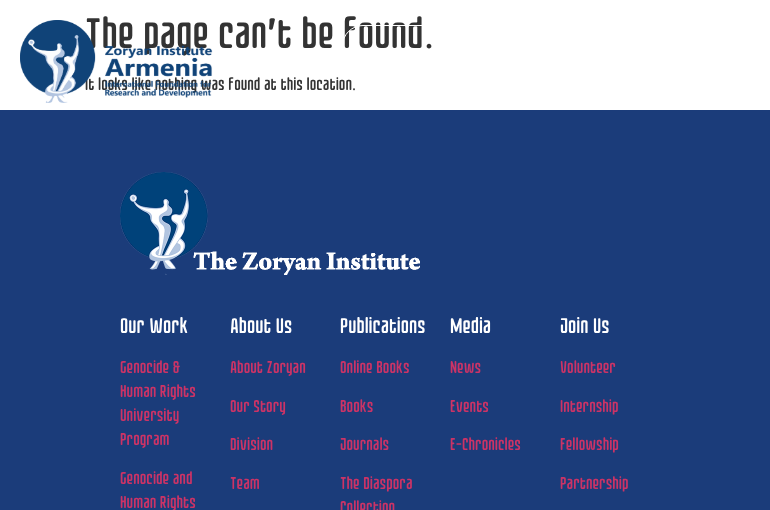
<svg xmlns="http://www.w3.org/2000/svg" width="770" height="510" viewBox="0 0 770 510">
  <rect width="100%" height="100%" fill="#ffffff"/>
  <text x="85" y="48" font-family="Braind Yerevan" font-size="40" fill="#333333">The page can’t be found</text>
  <text x="424" y="48" font-family="Liberation Serif" font-size="40" fill="#333333">.</text>
  <text x="85" y="90" font-family="Braind Yerevan" font-size="16" fill="#333333">It looks like nothing was found at this location</text>
  <text x="352" y="90" font-family="Liberation Serif" font-size="16" fill="#333333">.</text>
  <image x="20" y="20" width="193" height="83" href="img1.png"/>
  <rect x="342.5" y="25.5" width="105" height="41" rx="20.5" fill="none" stroke="#ffffff"/>
  <rect x="0" y="110" width="770" height="400" fill="#1b3c7a"/>
  <image x="120" y="172" width="300" height="103" href="img2.png"/>
  <text x="120" y="333" font-family="Braind Yerevan" font-size="20" fill="#ffffff">Our Work</text>
  <text x="120" y="373" font-family="Braind Yerevan" font-size="16" fill="#cc3366">Genocide &amp;</text>
  <text x="120" y="397" font-family="Braind Yerevan" font-size="16" fill="#cc3366">Human Rights</text>
  <text x="120" y="421" font-family="Braind Yerevan" font-size="16" fill="#cc3366">University</text>
  <text x="120" y="445" font-family="Braind Yerevan" font-size="16" fill="#cc3366">Program</text>
  <text x="120" y="484" font-family="Braind Yerevan" font-size="16" fill="#cc3366">Genocide and</text>
  <text x="120" y="508" font-family="Braind Yerevan" font-size="16" fill="#cc3366">Human Rights</text>
  <text x="230" y="333" font-family="Braind Yerevan" font-size="20" fill="#ffffff">About Us</text>
  <text x="230" y="373" font-family="Braind Yerevan" font-size="16" fill="#cc3366">About Zoryan</text>
  <text x="230" y="412" font-family="Braind Yerevan" font-size="16" fill="#cc3366">Our Story</text>
  <text x="230" y="450" font-family="Braind Yerevan" font-size="16" fill="#cc3366">Division</text>
  <text x="230" y="489" font-family="Braind Yerevan" font-size="16" fill="#cc3366">Team</text>
  <text x="340" y="333" font-family="Braind Yerevan" font-size="20" fill="#ffffff">Publications</text>
  <text x="340" y="373" font-family="Braind Yerevan" font-size="16" fill="#cc3366">Online Books</text>
  <text x="340" y="412" font-family="Braind Yerevan" font-size="16" fill="#cc3366">Books</text>
  <text x="340" y="450" font-family="Braind Yerevan" font-size="16" fill="#cc3366">Journals</text>
  <text x="340" y="489" font-family="Braind Yerevan" font-size="16" fill="#cc3366">The Diaspora</text>
  <text x="340" y="513" font-family="Braind Yerevan" font-size="16" fill="#cc3366">Collection</text>
  <text x="450" y="333" font-family="Braind Yerevan" font-size="20" fill="#ffffff">Media</text>
  <text x="450" y="373" font-family="Braind Yerevan" font-size="16" fill="#cc3366">News</text>
  <text x="450" y="412" font-family="Braind Yerevan" font-size="16" fill="#cc3366">Events</text>
  <text x="450" y="450" font-family="Braind Yerevan" font-size="16" fill="#cc3366">E-Chronicles</text>
  <text x="560" y="333" font-family="Braind Yerevan" font-size="20" fill="#ffffff">Join Us</text>
  <text x="560" y="373" font-family="Braind Yerevan" font-size="16" fill="#cc3366">Volunteer</text>
  <text x="560" y="412" font-family="Braind Yerevan" font-size="16" fill="#cc3366">Internship</text>
  <text x="560" y="450" font-family="Braind Yerevan" font-size="16" fill="#cc3366">Fellowship</text>
  <text x="560" y="489" font-family="Braind Yerevan" font-size="16" fill="#cc3366">Partnership</text>
</svg>
